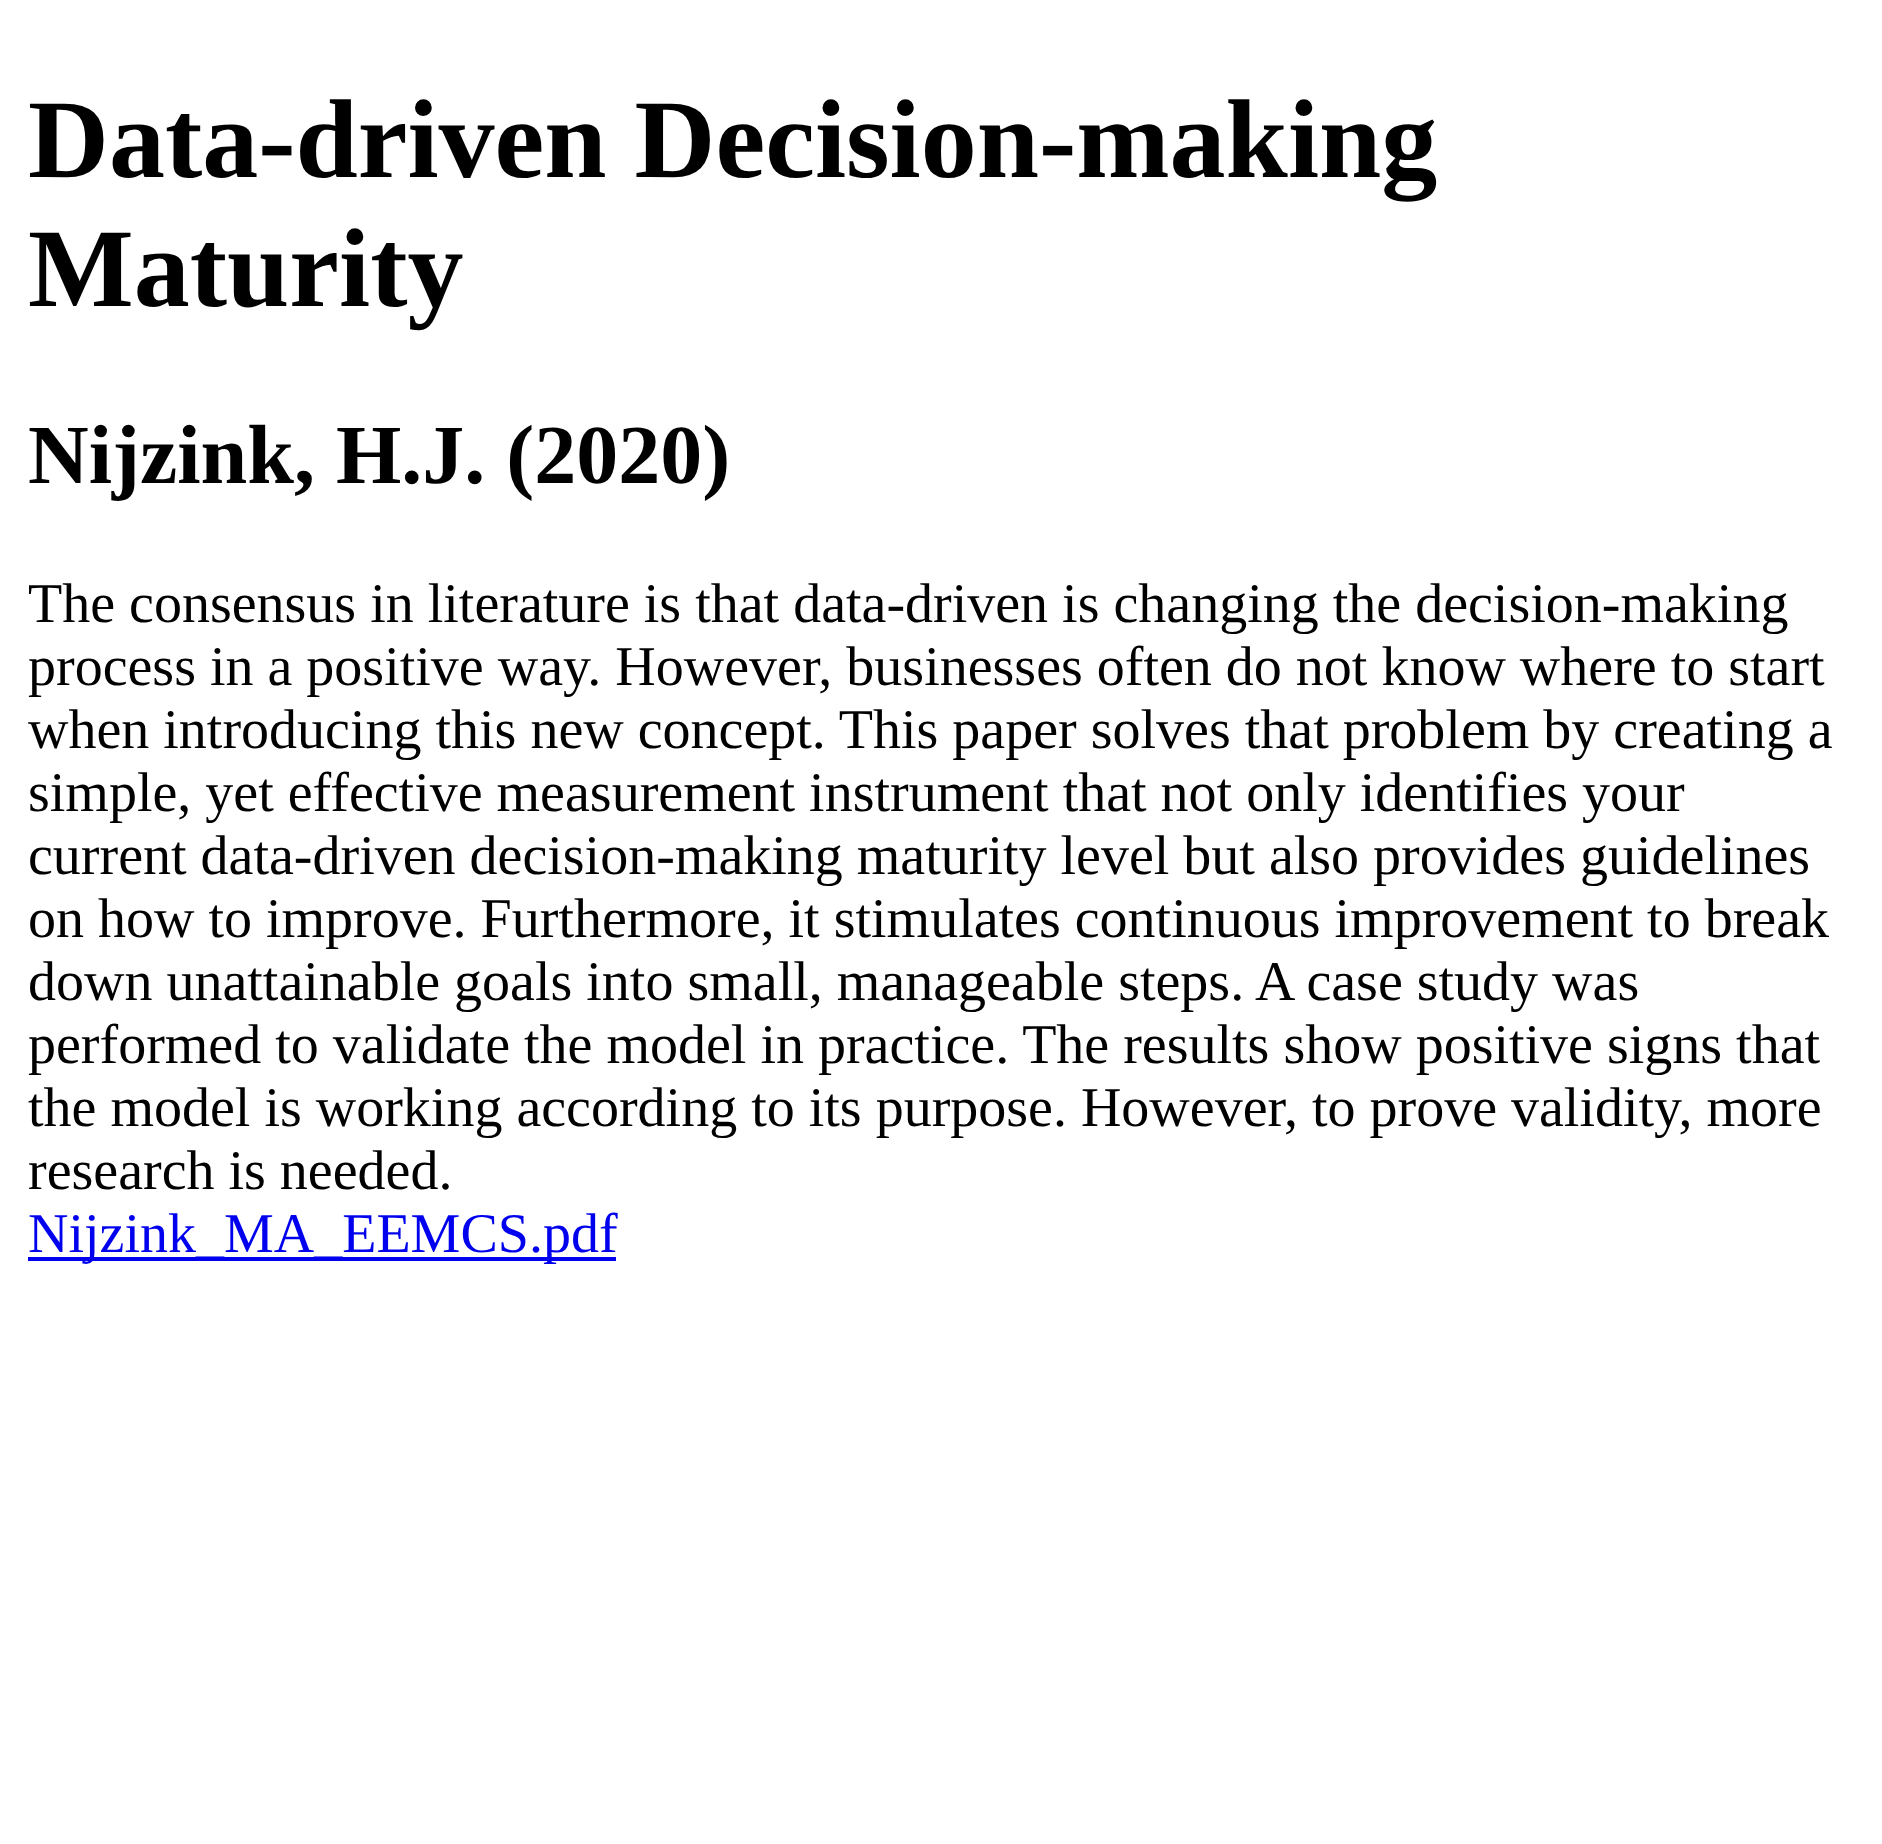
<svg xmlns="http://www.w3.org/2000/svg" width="1882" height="1844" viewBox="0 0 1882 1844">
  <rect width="100%" height="100%" fill="#ffffff"/>
  <text x="28" y="177" font-family="Liberation Serif" font-size="112" font-weight="bold" fill="#000000">Data-driven Decision-making</text>
  <text x="28" y="306" font-family="Liberation Serif" font-size="112" font-weight="bold" fill="#000000">Maturity</text>
  <text x="28" y="483" font-family="Liberation Serif" font-size="84" font-weight="bold" fill="#000000">Nijzink, H.J. (2020)</text>
  <text x="28" y="622" font-family="Liberation Serif" font-size="56" fill="#000000">The consensus in literature is that data-driven is changing the decision-making</text>
  <text x="28" y="685" font-family="Liberation Serif" font-size="56" fill="#000000">process in a positive way. However, businesses often do not know where to start</text>
  <text x="28" y="748" font-family="Liberation Serif" font-size="56" fill="#000000">when introducing this new concept. This paper solves that problem by creating a</text>
  <text x="28" y="811" font-family="Liberation Serif" font-size="56" fill="#000000">simple, yet effective measurement instrument that not only identifies your</text>
  <text x="28" y="874" font-family="Liberation Serif" font-size="56" fill="#000000">current data-driven decision-making maturity level but also provides guidelines</text>
  <text x="28" y="937" font-family="Liberation Serif" font-size="56" fill="#000000">on how to improve. Furthermore, it stimulates continuous improvement to break</text>
  <text x="28" y="1000" font-family="Liberation Serif" font-size="56" fill="#000000">down unattainable goals into small, manageable steps. A case study was</text>
  <text x="28" y="1063" font-family="Liberation Serif" font-size="56" fill="#000000">performed to validate the model in practice. The results show positive signs that</text>
  <text x="28" y="1126" font-family="Liberation Serif" font-size="56" fill="#000000">the model is working according to its purpose. However, to prove validity, more</text>
  <text x="28" y="1189" font-family="Liberation Serif" font-size="56" fill="#000000">research is needed.</text>
  <rect x="28" y="1257" width="588" height="4" fill="#0000ee"/>
  <text x="28" y="1252" font-family="Liberation Serif" font-size="56" fill="#0000ee">Nijzink_MA_EEMCS.pdf</text>
</svg>
